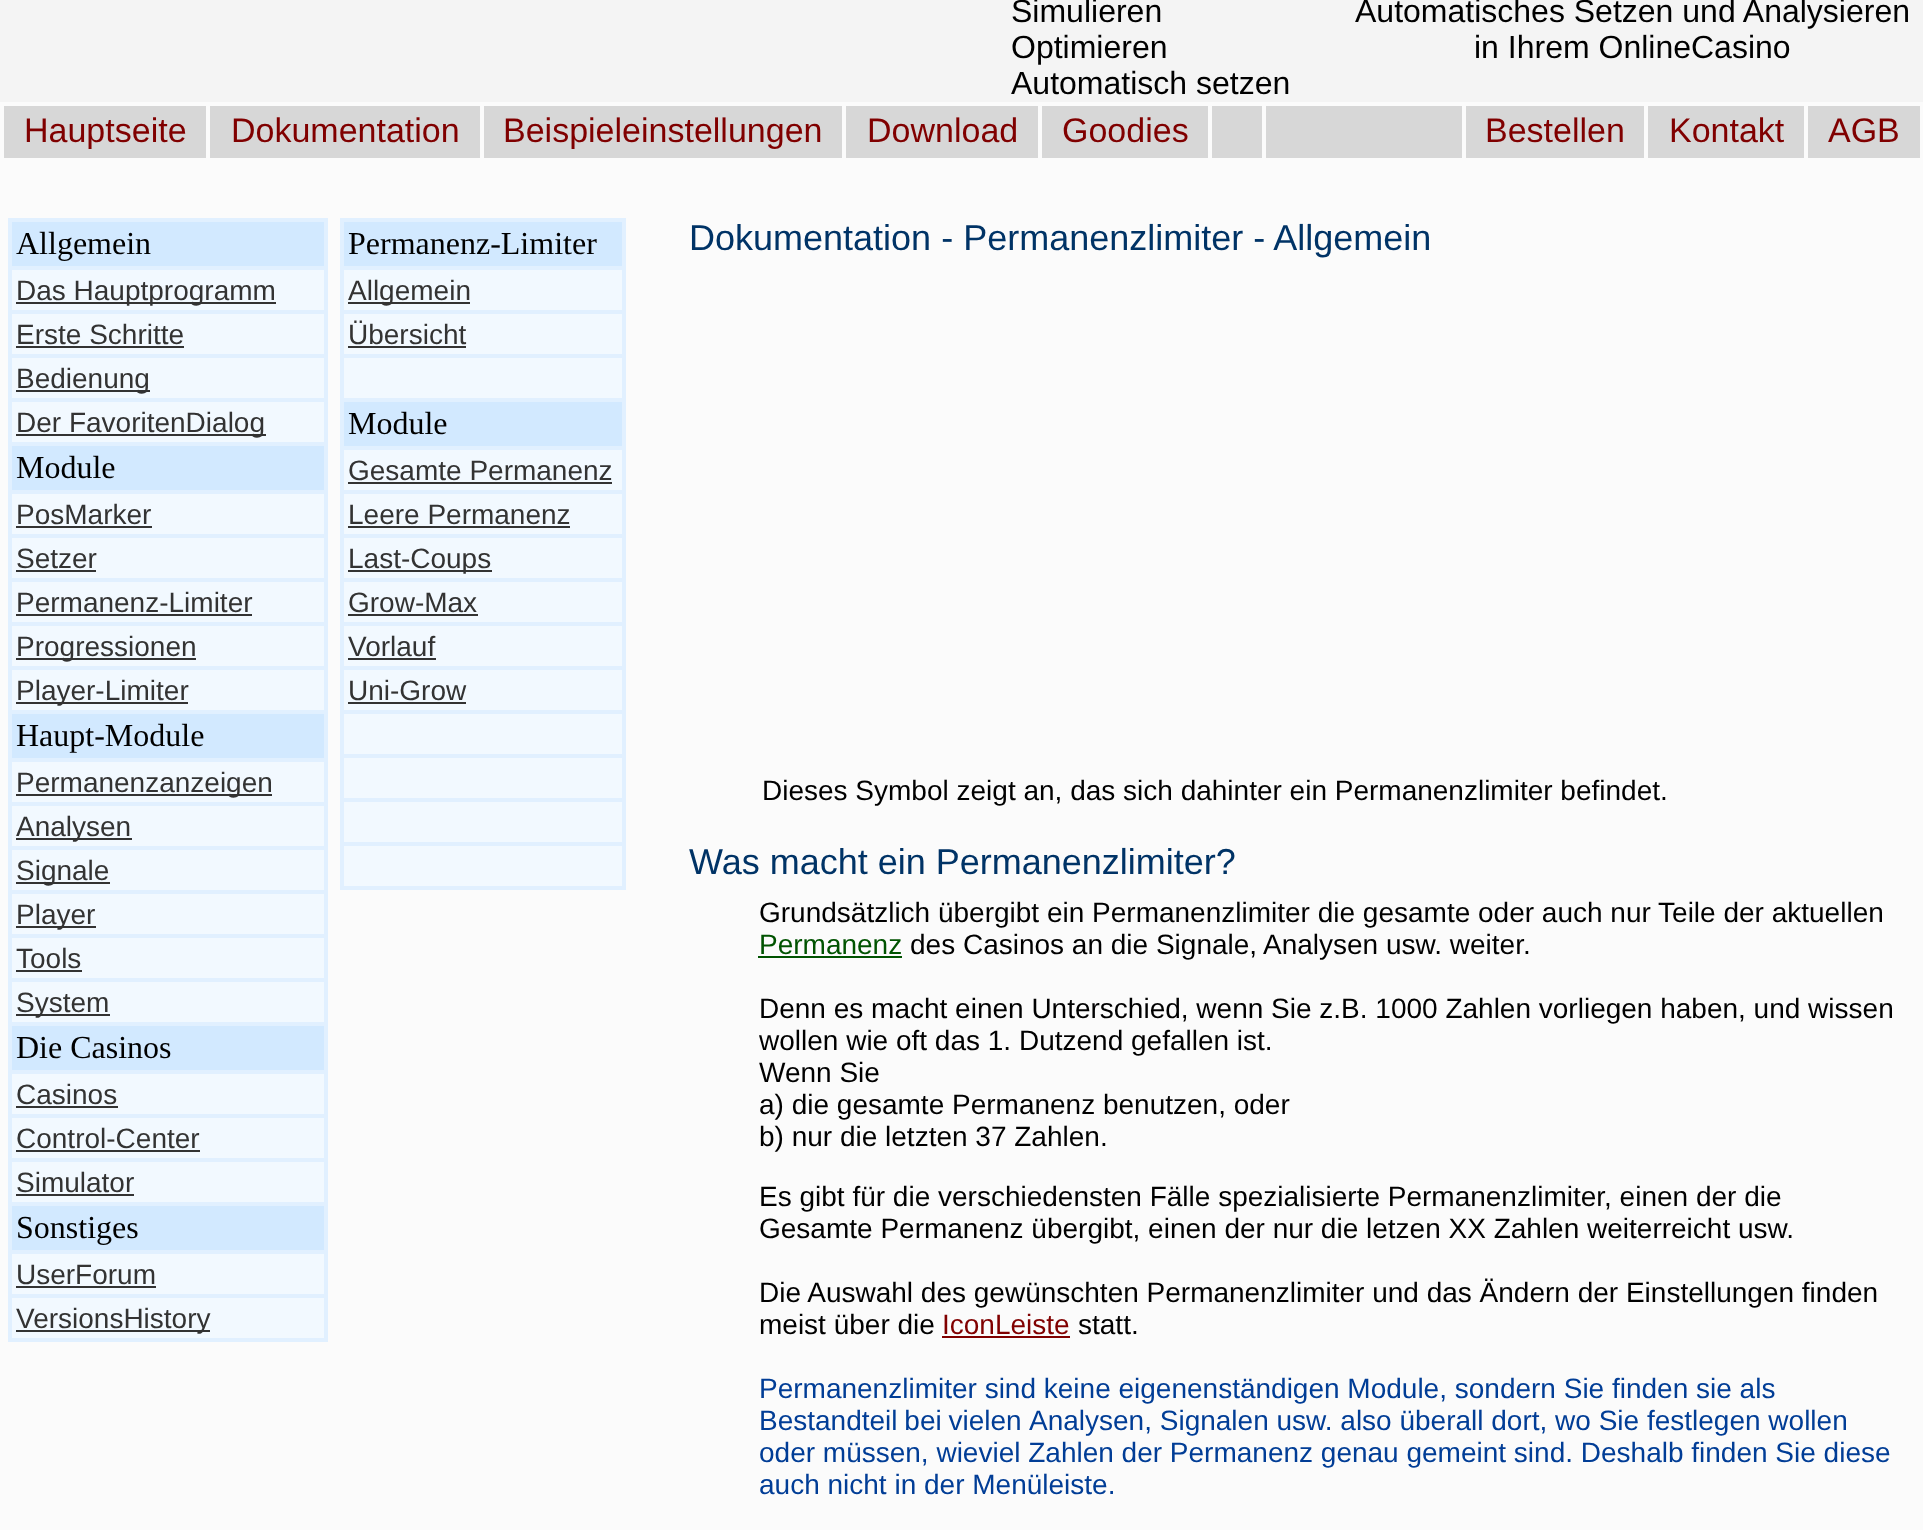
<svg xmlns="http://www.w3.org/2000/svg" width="1923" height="1530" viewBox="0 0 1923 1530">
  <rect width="100%" height="100%" fill="#fbfbfb"/>
  <rect x="0" y="0" width="1923" height="102" fill="#f4f4f4"/>
  <text x="1011" y="22" font-family="Liberation Sans" font-size="32" fill="#000000">Simulieren</text>
  <text x="1011" y="58" font-family="Liberation Sans" font-size="32" fill="#000000">Optimieren</text>
  <text x="1011" y="94" font-family="Liberation Sans" font-size="32" fill="#000000">Automatisch setzen</text>
  <text x="1355" y="22" font-family="Liberation Sans" font-size="32" fill="#000000">Automatisches Setzen und Analysieren</text>
  <text x="1474" y="58" font-family="Liberation Sans" font-size="32" fill="#000000">in Ihrem OnlineCasino</text>
  <rect x="4" y="106" width="202" height="52" fill="#d7d7d7"/>
  <text x="24" y="142" font-family="Liberation Sans" font-size="34" fill="#800000">Hauptseite</text>
  <rect x="210" y="106" width="270" height="52" fill="#d7d7d7"/>
  <text x="231" y="142" font-family="Liberation Sans" font-size="34" fill="#800000">Dokumentation</text>
  <rect x="484" y="106" width="358" height="52" fill="#d7d7d7"/>
  <text x="503" y="142" font-family="Liberation Sans" font-size="34" fill="#800000">Beispieleinstellungen</text>
  <rect x="846" y="106" width="192" height="52" fill="#d7d7d7"/>
  <text x="867" y="142" font-family="Liberation Sans" font-size="34" fill="#800000">Download</text>
  <rect x="1042" y="106" width="166" height="52" fill="#d7d7d7"/>
  <text x="1062" y="142" font-family="Liberation Sans" font-size="34" fill="#800000">Goodies</text>
  <rect x="1212" y="106" width="50" height="52" fill="#d7d7d7"/>
  <rect x="1266" y="106" width="196" height="52" fill="#d7d7d7"/>
  <rect x="1466" y="106" width="178" height="52" fill="#d7d7d7"/>
  <text x="1485" y="142" font-family="Liberation Sans" font-size="34" fill="#800000">Bestellen</text>
  <rect x="1648" y="106" width="156" height="52" fill="#d7d7d7"/>
  <text x="1669" y="142" font-family="Liberation Sans" font-size="34" fill="#800000">Kontakt</text>
  <rect x="1808" y="106" width="112" height="52" fill="#d7d7d7"/>
  <text x="1828" y="142" font-family="Liberation Sans" font-size="34" fill="#800000">AGB</text>
  <rect x="8" y="218" width="320" height="1124" fill="#e1f0ff"/>
  <rect x="12" y="222" width="312" height="44" fill="#d2e9ff"/>
  <text x="16" y="254" font-family="Liberation Serif" font-size="32" fill="#000000">Allgemein</text>
  <rect x="12" y="270" width="312" height="40" fill="#f2f9ff"/>
  <rect x="16" y="302" width="260" height="2" fill="#333333"/>
  <text x="16" y="300" font-family="Liberation Sans" font-size="28" fill="#333333">Das Hauptprogramm</text>
  <rect x="12" y="314" width="312" height="40" fill="#f2f9ff"/>
  <text x="16" y="344" font-family="Liberation Sans" font-size="28" fill="#333333">Erste Schritte</text>
  <rect x="16" y="346" width="168" height="2" fill="#333333"/>
  <rect x="12" y="358" width="312" height="40" fill="#f2f9ff"/>
  <rect x="16" y="390" width="134" height="2" fill="#333333"/>
  <text x="16" y="388" font-family="Liberation Sans" font-size="28" fill="#333333">Bedienung</text>
  <rect x="12" y="402" width="312" height="40" fill="#f2f9ff"/>
  <rect x="16" y="434" width="250" height="2" fill="#333333"/>
  <text x="16" y="432" font-family="Liberation Sans" font-size="28" fill="#333333">Der FavoritenDialog</text>
  <rect x="12" y="446" width="312" height="44" fill="#d2e9ff"/>
  <text x="16" y="478" font-family="Liberation Serif" font-size="32" fill="#000000">Module</text>
  <rect x="12" y="494" width="312" height="40" fill="#f2f9ff"/>
  <text x="16" y="524" font-family="Liberation Sans" font-size="28" fill="#333333">PosMarker</text>
  <rect x="16" y="526" width="136" height="2" fill="#333333"/>
  <rect x="12" y="538" width="312" height="40" fill="#f2f9ff"/>
  <text x="16" y="568" font-family="Liberation Sans" font-size="28" fill="#333333">Setzer</text>
  <rect x="16" y="570" width="80" height="2" fill="#333333"/>
  <rect x="12" y="582" width="312" height="40" fill="#f2f9ff"/>
  <text x="16" y="612" font-family="Liberation Sans" font-size="28" fill="#333333">Permanenz-Limiter</text>
  <rect x="16" y="614" width="236" height="2" fill="#333333"/>
  <rect x="12" y="626" width="312" height="40" fill="#f2f9ff"/>
  <rect x="16" y="658" width="180" height="2" fill="#333333"/>
  <text x="16" y="656" font-family="Liberation Sans" font-size="28" fill="#333333">Progressionen</text>
  <rect x="12" y="670" width="312" height="40" fill="#f2f9ff"/>
  <rect x="16" y="702" width="172" height="2" fill="#333333"/>
  <text x="16" y="700" font-family="Liberation Sans" font-size="28" fill="#333333">Player-Limiter</text>
  <rect x="12" y="714" width="312" height="44" fill="#d2e9ff"/>
  <text x="16" y="746" font-family="Liberation Serif" font-size="32" fill="#000000">Haupt-Module</text>
  <rect x="12" y="762" width="312" height="40" fill="#f2f9ff"/>
  <rect x="16" y="794" width="256" height="2" fill="#333333"/>
  <text x="16" y="792" font-family="Liberation Sans" font-size="28" fill="#333333">Permanenzanzeigen</text>
  <rect x="12" y="806" width="312" height="40" fill="#f2f9ff"/>
  <rect x="16" y="838" width="116" height="2" fill="#333333"/>
  <text x="16" y="836" font-family="Liberation Sans" font-size="28" fill="#333333">Analysen</text>
  <rect x="12" y="850" width="312" height="40" fill="#f2f9ff"/>
  <rect x="16" y="882" width="94" height="2" fill="#333333"/>
  <text x="16" y="880" font-family="Liberation Sans" font-size="28" fill="#333333">Signale</text>
  <rect x="12" y="894" width="312" height="40" fill="#f2f9ff"/>
  <rect x="16" y="926" width="80" height="2" fill="#333333"/>
  <text x="16" y="924" font-family="Liberation Sans" font-size="28" fill="#333333">Player</text>
  <rect x="12" y="938" width="312" height="40" fill="#f2f9ff"/>
  <text x="16" y="968" font-family="Liberation Sans" font-size="28" fill="#333333">Tools</text>
  <rect x="16" y="970" width="66" height="2" fill="#333333"/>
  <rect x="12" y="982" width="312" height="40" fill="#f2f9ff"/>
  <rect x="16" y="1014" width="94" height="2" fill="#333333"/>
  <text x="16" y="1012" font-family="Liberation Sans" font-size="28" fill="#333333">System</text>
  <rect x="12" y="1026" width="312" height="44" fill="#d2e9ff"/>
  <text x="16" y="1058" font-family="Liberation Serif" font-size="32" fill="#000000">Die Casinos</text>
  <rect x="12" y="1074" width="312" height="40" fill="#f2f9ff"/>
  <text x="16" y="1104" font-family="Liberation Sans" font-size="28" fill="#333333">Casinos</text>
  <rect x="16" y="1106" width="102" height="2" fill="#333333"/>
  <rect x="12" y="1118" width="312" height="40" fill="#f2f9ff"/>
  <text x="16" y="1148" font-family="Liberation Sans" font-size="28" fill="#333333">Control-Center</text>
  <rect x="16" y="1150" width="184" height="2" fill="#333333"/>
  <rect x="12" y="1162" width="312" height="40" fill="#f2f9ff"/>
  <text x="16" y="1192" font-family="Liberation Sans" font-size="28" fill="#333333">Simulator</text>
  <rect x="16" y="1194" width="118" height="2" fill="#333333"/>
  <rect x="12" y="1206" width="312" height="44" fill="#d2e9ff"/>
  <text x="16" y="1238" font-family="Liberation Serif" font-size="32" fill="#000000">Sonstiges</text>
  <rect x="12" y="1254" width="312" height="40" fill="#f2f9ff"/>
  <text x="16" y="1284" font-family="Liberation Sans" font-size="28" fill="#333333">UserForum</text>
  <rect x="16" y="1286" width="140" height="2" fill="#333333"/>
  <rect x="12" y="1298" width="312" height="40" fill="#f2f9ff"/>
  <rect x="16" y="1330" width="194" height="2" fill="#333333"/>
  <text x="16" y="1328" font-family="Liberation Sans" font-size="28" fill="#333333">VersionsHistory</text>
  <rect x="340" y="218" width="286" height="672" fill="#e1f0ff"/>
  <rect x="344" y="222" width="278" height="44" fill="#d2e9ff"/>
  <text x="348" y="254" font-family="Liberation Serif" font-size="32" fill="#000000">Permanenz-Limiter</text>
  <rect x="344" y="270" width="278" height="40" fill="#f2f9ff"/>
  <rect x="348" y="302" width="122" height="2" fill="#333333"/>
  <text x="348" y="300" font-family="Liberation Sans" font-size="28" fill="#333333">Allgemein</text>
  <rect x="344" y="314" width="278" height="40" fill="#f2f9ff"/>
  <text x="348" y="344" font-family="Liberation Sans" font-size="28" fill="#333333">Übersicht</text>
  <rect x="348" y="346" width="118" height="2" fill="#333333"/>
  <rect x="344" y="358" width="278" height="40" fill="#f2f9ff"/>
  <rect x="344" y="402" width="278" height="44" fill="#d2e9ff"/>
  <text x="348" y="434" font-family="Liberation Serif" font-size="32" fill="#000000">Module</text>
  <rect x="344" y="450" width="278" height="40" fill="#f2f9ff"/>
  <text x="348" y="480" font-family="Liberation Sans" font-size="28" fill="#333333">Gesamte Permanenz</text>
  <rect x="348" y="482" width="264" height="2" fill="#333333"/>
  <rect x="344" y="494" width="278" height="40" fill="#f2f9ff"/>
  <text x="348" y="524" font-family="Liberation Sans" font-size="28" fill="#333333">Leere Permanenz</text>
  <rect x="348" y="526" width="222" height="2" fill="#333333"/>
  <rect x="344" y="538" width="278" height="40" fill="#f2f9ff"/>
  <rect x="348" y="570" width="144" height="2" fill="#333333"/>
  <text x="348" y="568" font-family="Liberation Sans" font-size="28" fill="#333333">Last-Coups</text>
  <rect x="344" y="582" width="278" height="40" fill="#f2f9ff"/>
  <text x="348" y="612" font-family="Liberation Sans" font-size="28" fill="#333333">Grow-Max</text>
  <rect x="348" y="614" width="130" height="2" fill="#333333"/>
  <rect x="344" y="626" width="278" height="40" fill="#f2f9ff"/>
  <text x="348" y="656" font-family="Liberation Sans" font-size="28" fill="#333333">Vorlauf</text>
  <rect x="348" y="658" width="88" height="2" fill="#333333"/>
  <rect x="344" y="670" width="278" height="40" fill="#f2f9ff"/>
  <text x="348" y="700" font-family="Liberation Sans" font-size="28" fill="#333333">Uni-Grow</text>
  <rect x="348" y="702" width="118" height="2" fill="#333333"/>
  <rect x="344" y="714" width="278" height="40" fill="#f2f9ff"/>
  <rect x="344" y="758" width="278" height="40" fill="#f2f9ff"/>
  <rect x="344" y="802" width="278" height="40" fill="#f2f9ff"/>
  <rect x="344" y="846" width="278" height="40" fill="#f2f9ff"/>
  <text x="689" y="250" font-family="Liberation Sans" font-size="36" fill="#003366">Dokumentation - Permanenzlimiter - Allgemein</text>
  <text x="762" y="800" font-family="Liberation Sans" font-size="28" fill="#000000">Dieses Symbol zeigt an, das sich dahinter ein Permanenzlimiter befindet.</text>
  <text x="689" y="874" font-family="Liberation Sans" font-size="36" fill="#003366">Was macht ein Permanenzlimiter?</text>
  <text x="759" y="922" font-family="Liberation Sans" font-size="28" fill="#000000">Grundsätzlich übergibt ein Permanenzlimiter die gesamte oder auch nur Teile der aktuellen</text>
  <text x="759" y="954" font-family="Liberation Sans" font-size="28" fill="#005300">Permanenz</text>
  <rect x="758" y="956" width="144" height="2" fill="#005300"/>
  <text x="910" y="954" font-family="Liberation Sans" font-size="28" fill="#000000">des Casinos an die Signale,</text>
  <text x="1263" y="954" font-family="Liberation Sans" font-size="28" fill="#000000">Analysen usw. weiter.</text>
  <text x="759" y="1018" font-family="Liberation Sans" font-size="28" fill="#000000">Denn es macht einen Unterschied, wenn Sie z.B. 1000 Zahlen vorliegen haben, und wissen</text>
  <text x="759" y="1050" font-family="Liberation Sans" font-size="28" fill="#000000">wollen wie oft das 1. Dutzend gefallen ist.</text>
  <text x="759" y="1082" font-family="Liberation Sans" font-size="28" fill="#000000">Wenn Sie</text>
  <text x="759" y="1114" font-family="Liberation Sans" font-size="28" fill="#000000">a) die gesamte Permanenz benutzen, oder</text>
  <text x="759" y="1146" font-family="Liberation Sans" font-size="28" fill="#000000">b) nur die letzten 37 Zahlen.</text>
  <text x="759" y="1206" font-family="Liberation Sans" font-size="28" fill="#000000">Es gibt für die verschiedensten Fälle spezialisierte Permanenzlimiter, einen der die</text>
  <text x="759" y="1238" font-family="Liberation Sans" font-size="28" fill="#000000">Gesamte Permanenz übergibt, einen der nur die letzen XX Zahlen weiterreicht usw.</text>
  <text x="759" y="1302" font-family="Liberation Sans" font-size="28" fill="#000000">Die Auswahl des gewünschten Permanenzlimiter und das Ändern der Einstellungen finden</text>
  <text x="759" y="1334" font-family="Liberation Sans" font-size="28" fill="#000000">meist über die</text>
  <text x="942" y="1334" font-family="Liberation Sans" font-size="28" fill="#800000">IconLeiste</text>
  <rect x="942" y="1336" width="128" height="2" fill="#800000"/>
  <text x="1078" y="1334" font-family="Liberation Sans" font-size="28" fill="#000000">statt.</text>
  <text x="759" y="1398" font-family="Liberation Sans" font-size="28" fill="#013d96">Permanenzlimiter sind keine eigenenständigen Module, sondern Sie finden sie als</text>
  <text x="759" y="1430" word-spacing="-1" font-family="Liberation Sans" font-size="28" fill="#013d96">Bestandteil bei vielen</text>
  <text x="1029" y="1430" font-family="Liberation Sans" font-size="28" fill="#013d96">Analysen, Signalen usw. also überall dort, wo Sie festlegen wollen</text>
  <text x="759" y="1462" font-family="Liberation Sans" font-size="28" fill="#013d96">oder müssen, wieviel Zahlen der Permanenz genau gemeint sind. Deshalb finden Sie diese</text>
  <text x="759" y="1494" font-family="Liberation Sans" font-size="28" fill="#013d96">auch nicht in der Menüleiste.</text>
</svg>
